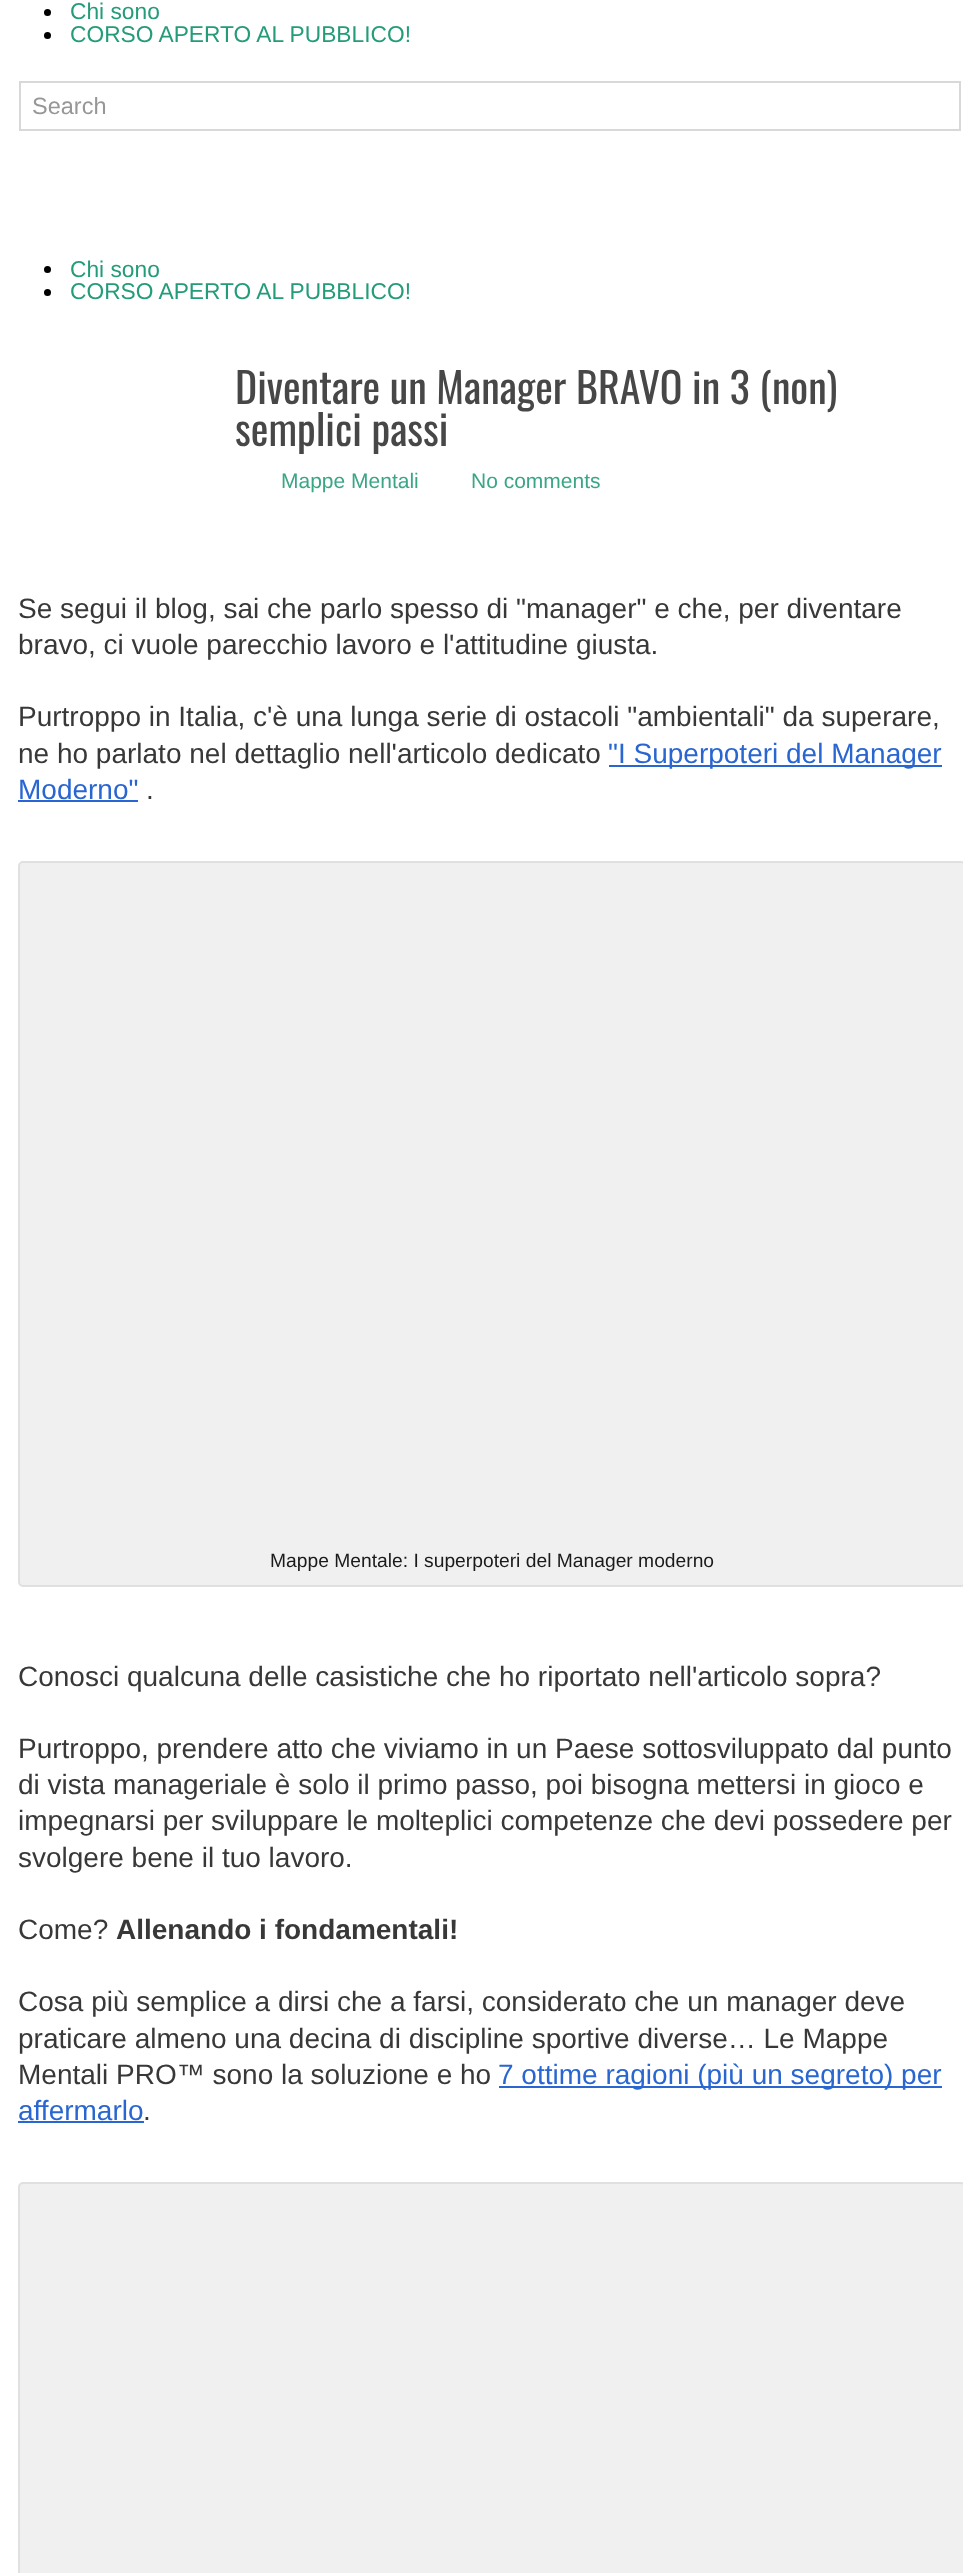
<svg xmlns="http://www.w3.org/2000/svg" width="980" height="2573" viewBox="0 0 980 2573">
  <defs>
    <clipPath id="clip1"><rect x="18" y="364" width="945" height="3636"/></clipPath>
  </defs>
  <rect width="100%" height="100%" fill="#ffffff"/>
  <circle cx="47.5" cy="12.5" r="3.5" fill="#000000"/>
  <text x="70" y="19" font-family="Liberation Sans" font-size="22.75" fill="#249c79">Chi sono</text>
  <circle cx="47.5" cy="35.5" r="3.5" fill="#000000"/>
  <text x="70" y="42" font-family="Liberation Sans" font-size="22.75" fill="#249c79">CORSO APERTO AL PUBBLICO!</text>
  <rect x="20" y="82" width="940" height="48" fill="none" stroke="#d8d8d8" stroke-width="2"/>
  <text x="32" y="114" font-family="Liberation Sans" font-size="23.5" fill="#979797">Search</text>
  <circle cx="47.5" cy="269.5" r="3.5" fill="#000000"/>
  <text x="70" y="277" font-family="Liberation Sans" font-size="22.75" fill="#249c79">Chi sono</text>
  <circle cx="47.5" cy="292.5" r="3.5" fill="#000000"/>
  <text x="70" y="299" font-family="Liberation Sans" font-size="22.75" fill="#249c79">CORSO APERTO AL PUBBLICO!</text>
  <text x="235" y="404" font-family="Oswald" font-size="42" fill="#474747">Diventare un Manager BRAVO in 3 (non)</text>
  <text x="235" y="446" font-family="Oswald" font-size="42" fill="#474747">semplici passi</text>
  <text x="281" y="488" font-family="Liberation Sans" font-size="21" fill="#3aa686">Mappe Mentali</text>
  <text x="471" y="488" font-family="Liberation Sans" font-size="21" fill="#3aa686">No comments</text>
  <text x="18" y="618" font-family="Liberation Sans" font-size="28" fill="#383838">Se segui il blog, sai che parlo spesso di "manager" e che, per diventare</text>
  <text x="18" y="654" font-family="Liberation Sans" font-size="28" fill="#383838">bravo, ci vuole parecchio lavoro e l'attitudine giusta.</text>
  <text x="18" y="726" font-family="Liberation Sans" font-size="28" fill="#383838">Purtroppo in Italia, c'è una lunga serie di ostacoli "ambientali" da superare,</text>
  <text x="18" y="763" font-family="Liberation Sans" font-size="28" fill="#383838">ne ho parlato nel dettaglio nell'articolo dedicato</text>
  <rect x="609" y="765" width="333" height="2" fill="#2966d1"/>
  <text x="608" y="763" font-family="Liberation Sans" font-size="28" fill="#2966d1">"I Superpoteri del Manager</text>
  <text x="18" y="799" font-family="Liberation Sans" font-size="28" fill="#2966d1">Moderno"</text>
  <rect x="18" y="800" width="120" height="2" fill="#2966d1"/>
  <text x="146" y="799" font-family="Liberation Sans" font-size="28" fill="#383838">.</text>
  <g clip-path="url(#clip1)">
    <rect x="19" y="862" width="946" height="724" rx="4" fill="#f0f0f0" stroke="#e0e0e0" stroke-width="2"/>
  </g>
  <text x="270" y="1567" font-family="Liberation Sans" font-size="19.25" fill="#1a1a1a">Mappe Mentale: I superpoteri del Manager moderno</text>
  <text x="18" y="1686" font-family="Liberation Sans" font-size="28" fill="#383838">Conosci qualcuna delle casistiche che ho riportato nell'articolo sopra?</text>
  <text x="18" y="1758" font-family="Liberation Sans" font-size="28" fill="#383838">Purtroppo, prendere atto che viviamo in un Paese sottosviluppato dal punto</text>
  <text x="18" y="1794" font-family="Liberation Sans" font-size="28" fill="#383838">di vista manageriale è solo il primo passo, poi bisogna mettersi in gioco e</text>
  <text x="18" y="1830" font-family="Liberation Sans" font-size="28" fill="#383838">impegnarsi per sviluppare le molteplici competenze che devi possedere per</text>
  <text x="18" y="1867" font-family="Liberation Sans" font-size="28" fill="#383838">svolgere bene il tuo lavoro.</text>
  <text x="18" y="1939" font-family="Liberation Sans" font-size="28" fill="#383838">Come?</text>
  <text x="116" y="1939" font-family="Liberation Sans" font-size="28" font-weight="bold" fill="#383838">Allenando i fondamentali!</text>
  <text x="18" y="2011" font-family="Liberation Sans" font-size="28" fill="#383838">Cosa più semplice a dirsi che a farsi, considerato che un manager deve</text>
  <text x="18" y="2048" font-family="Liberation Sans" font-size="28" fill="#383838">praticare almeno una decina di discipline sportive diverse… Le Mappe</text>
  <text x="18" y="2084" font-family="Liberation Sans" font-size="28" fill="#383838">Mentali PRO™ sono la soluzione e ho</text>
  <rect x="499" y="2086" width="443" height="2" fill="#2966d1"/>
  <text x="498" y="2084" font-family="Liberation Sans" font-size="28" fill="#2966d1">7 ottime ragioni (più un segreto) per</text>
  <text x="18" y="2120" font-family="Liberation Sans" font-size="28" fill="#2966d1">affermarlo</text>
  <rect x="18" y="2121" width="126" height="2" fill="#2966d1"/>
  <text x="143" y="2120" font-family="Liberation Sans" font-size="28" fill="#383838">.</text>
  <g clip-path="url(#clip1)">
    <rect x="19" y="2183" width="946" height="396" rx="4" fill="#f0f0f0" stroke="#e0e0e0" stroke-width="2"/>
  </g>
</svg>
